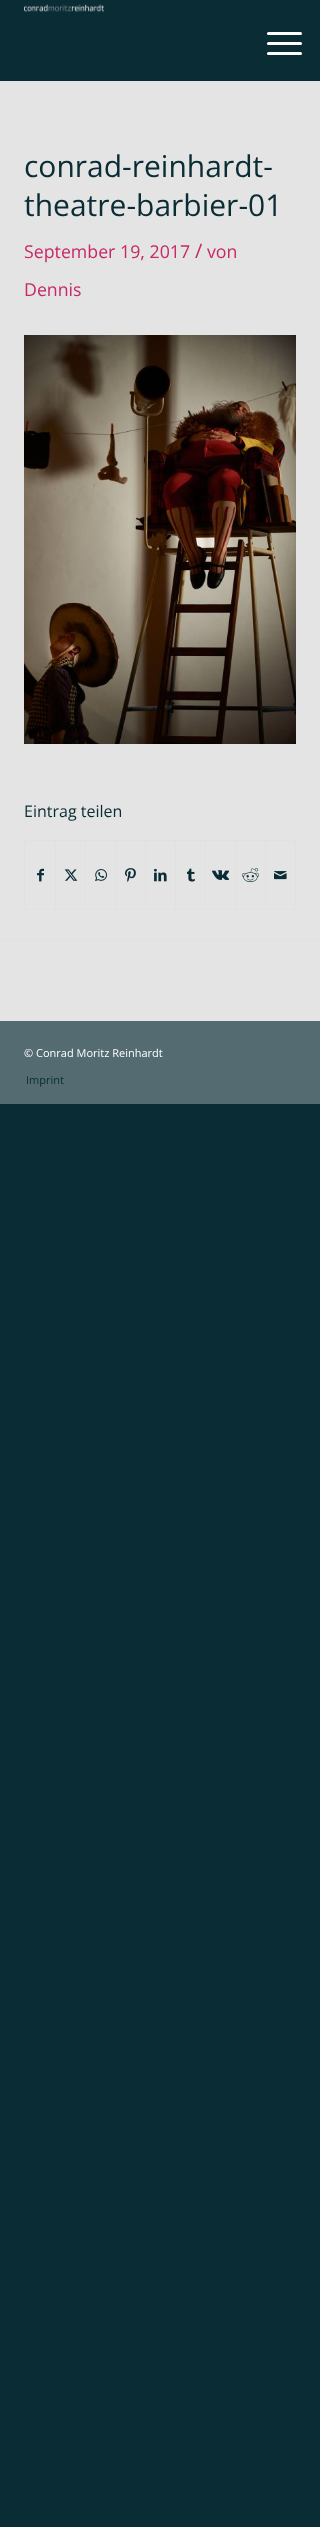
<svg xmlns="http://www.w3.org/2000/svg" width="320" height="2527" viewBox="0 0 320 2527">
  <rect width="100%" height="100%" fill="#0a2c35"/>
  <image x="24" y="4" width="80" height="8" href="img1.png"/>
  <rect x="267" y="42" width="35" height="3" rx="1.5" fill="#ffffff"/>
  <rect x="267" y="32" width="35" height="3" rx="1.5" fill="#ffffff"/>
  <rect x="267" y="52" width="35" height="3" rx="1.5" fill="#ffffff"/>
  <rect x="0" y="81" width="320" height="940" fill="#e4e4e4"/>
  <text x="24" y="177" font-family="Open Sans" font-size="30" fill="#0a2c35">conrad-reinhardt-</text>
  <text x="24" y="216" font-family="Open Sans" font-size="30" fill="#0a2c35">theatre-barbier-01</text>
  <text x="24" y="258" font-family="Open Sans" font-size="17.75" fill="#c82865">September 19, 2017</text>
  <text x="195" y="258" font-family="Open Sans" font-size="20" fill="#c82865">/</text>
  <text x="207" y="258" font-family="Open Sans" font-size="17.75" fill="#c82865">von</text>
  <text x="24" y="296" font-family="Open Sans" font-size="17.75" fill="#c82865">Dennis</text>
  <image x="24" y="335" width="272" height="409" href="img2.png"/>
  <text x="24" y="817" font-family="Open Sans" font-size="16" fill="#0a2c35">Eintrag teilen</text>
  <rect x="24.5" y="840.5" width="271" height="69" rx="2.5" fill="none" stroke="#e1e1e1"/>
  <image x="37" y="868" width="7" height="14" href="img3.png"/>
  <rect x="55" y="841" width="1" height="68" fill="#e1e1e1"/>
  <image x="64" y="869" width="14" height="12" href="img4.png"/>
  <rect x="85" y="841" width="1" height="68" fill="#e1e1e1"/>
  <image x="95" y="869" width="12" height="13" href="img5.png"/>
  <rect x="115" y="841" width="1" height="68" fill="#e1e1e1"/>
  <image x="125" y="868" width="11" height="14" href="img6.png"/>
  <rect x="145" y="841" width="1" height="68" fill="#e1e1e1"/>
  <image x="154" y="868" width="13" height="14" href="img7.png"/>
  <rect x="175" y="841" width="1" height="68" fill="#e1e1e1"/>
  <image x="187" y="868" width="8" height="14" href="img8.png"/>
  <rect x="205" y="841" width="1" height="68" fill="#e1e1e1"/>
  <image x="212" y="870" width="17" height="10" href="img9.png"/>
  <rect x="235" y="841" width="1" height="68" fill="#e1e1e1"/>
  <image x="242" y="868" width="17" height="15" href="img10.png"/>
  <rect x="265" y="841" width="1" height="68" fill="#e1e1e1"/>
  <image x="274" y="871" width="13" height="9" href="img11.png"/>
  <rect x="0" y="940" width="320" height="1" fill="#e1e1e1"/>
  <rect x="0" y="1021" width="320" height="83" fill="#536b71"/>
  <text x="24" y="1057" font-family="Open Sans" font-size="11" fill="#ffffff">© Conrad Moritz Reinhardt</text>
  <text x="26" y="1084" font-family="Open Sans" font-size="11" fill="#0a2c35">Imprint</text>
</svg>
